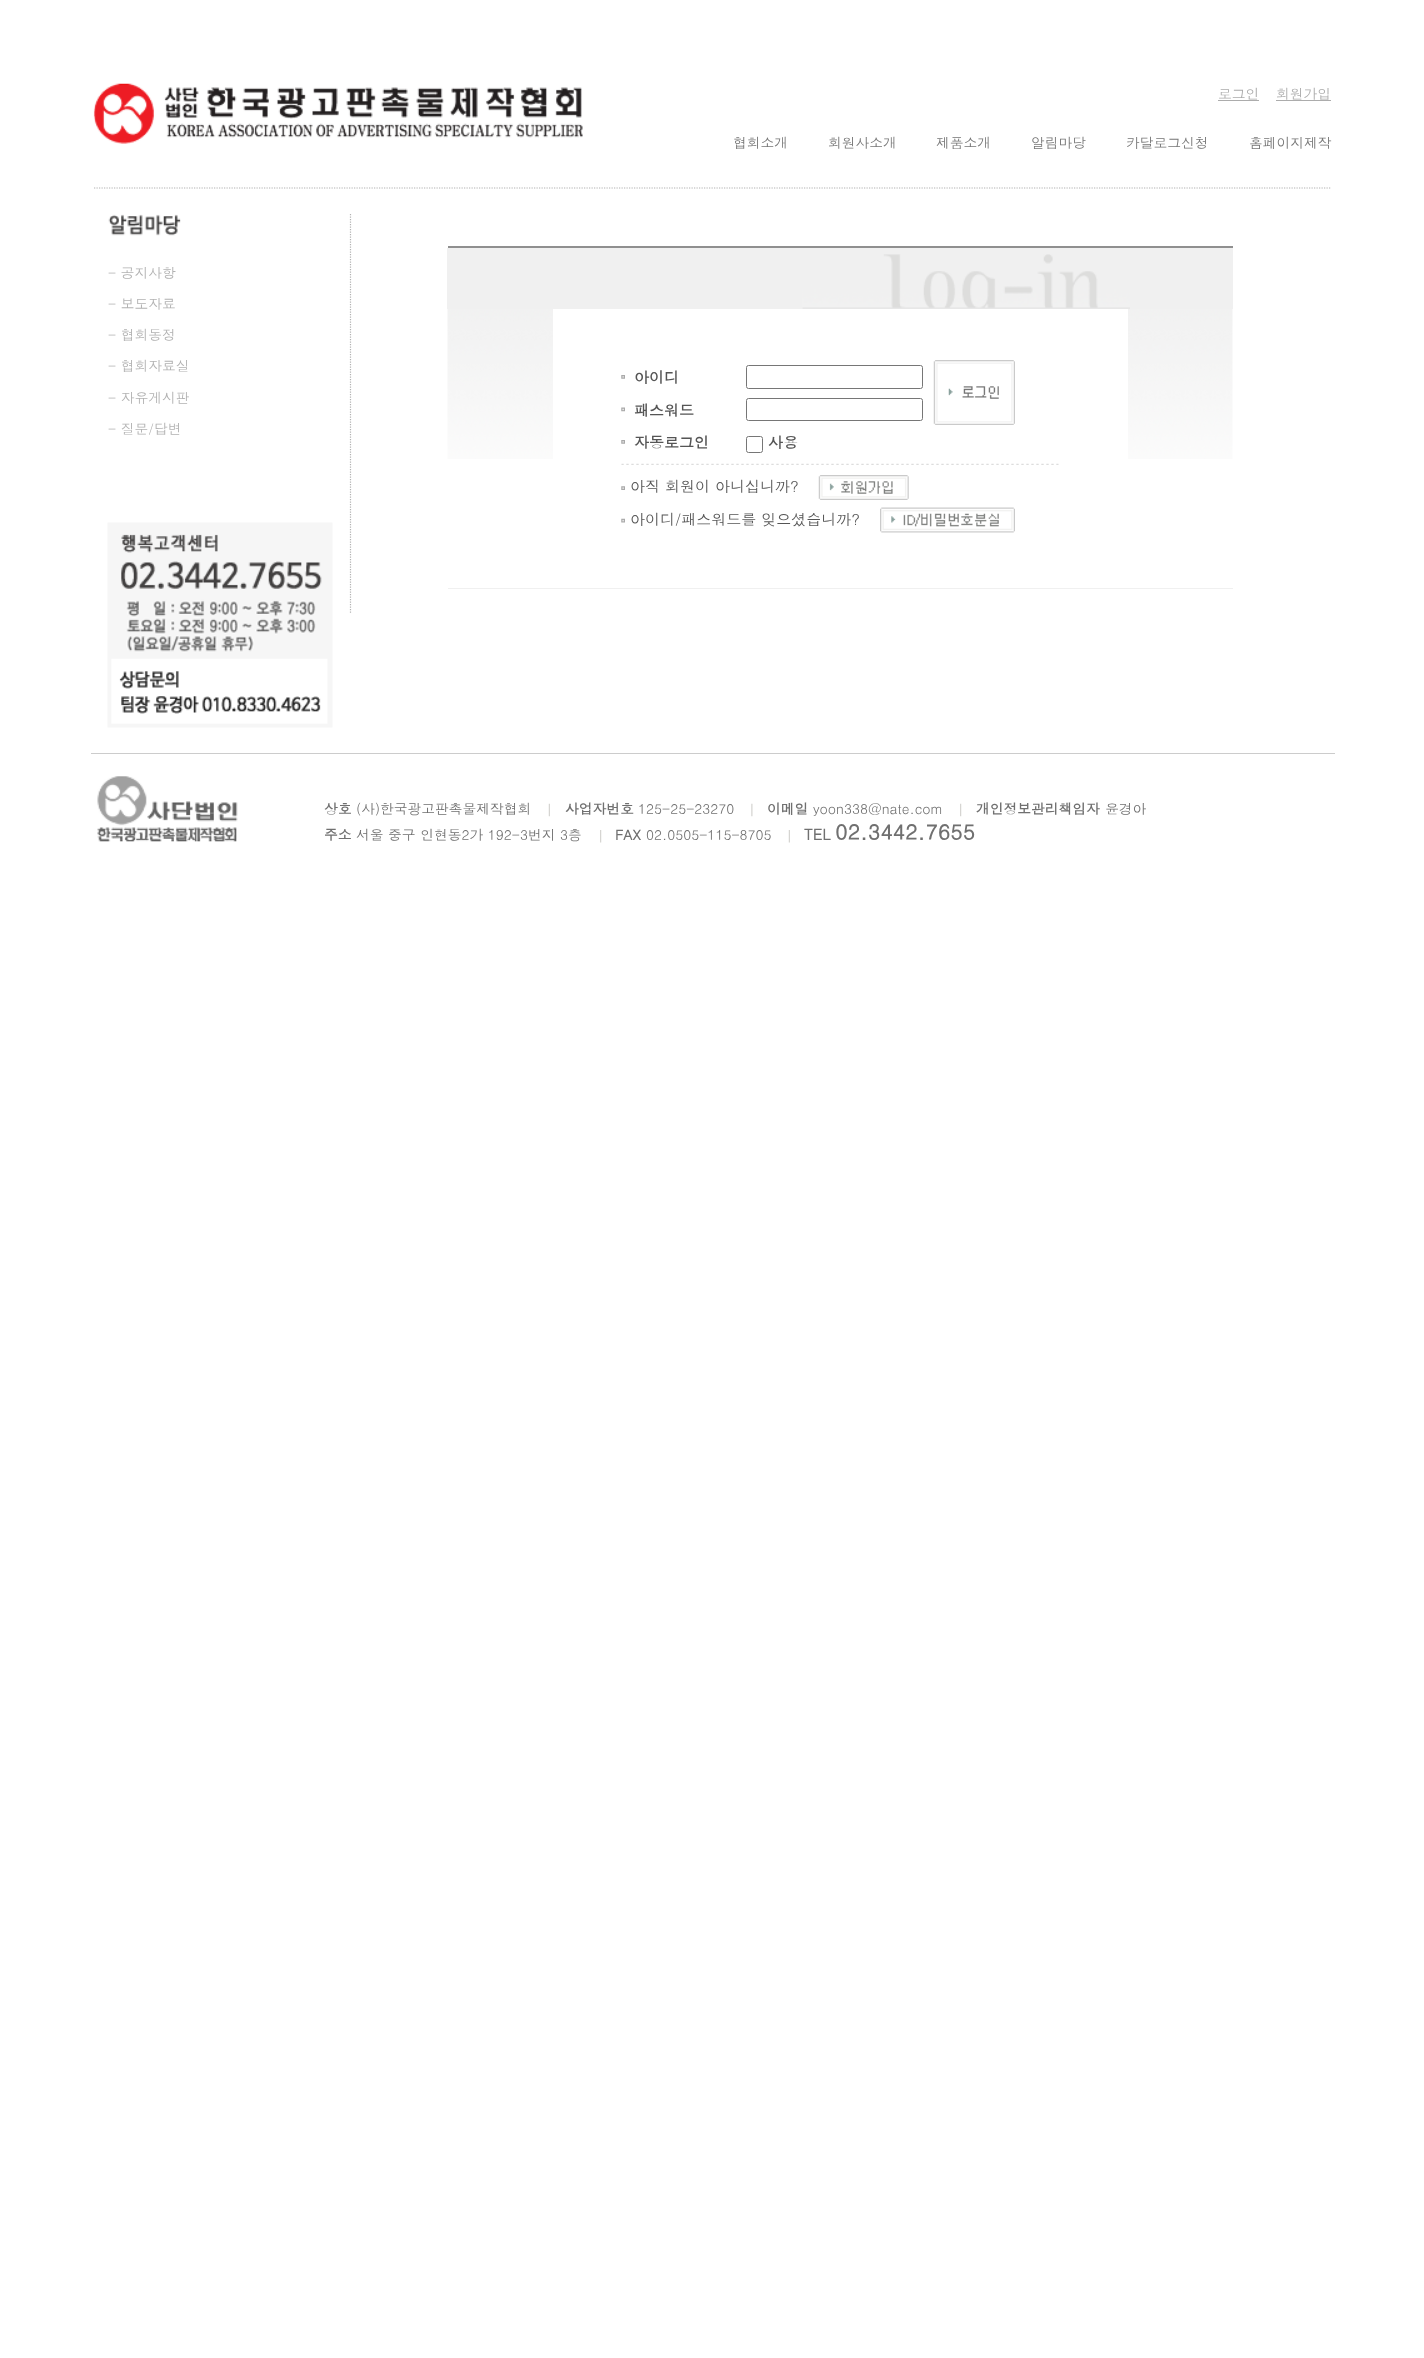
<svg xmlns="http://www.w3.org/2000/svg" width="1424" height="2358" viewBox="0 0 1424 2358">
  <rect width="100%" height="100%" fill="#ffffff"/>
  <path d="M94 188H1331" fill="none" stroke="#b2b2b2" stroke-width="1.2" stroke-dasharray="1.25 1.25"/>
  <image x="93" y="83" width="490" height="61" href="img1.png"/>
  <text x="1218" y="99" font-family="Dotum" font-size="13.75" fill="#acacac">로그인</text>
  <rect x="1218" y="100" width="41" height="1" fill="#acacac"/>
  <text x="1276" y="99" font-family="Dotum" font-size="13.75" fill="#acacac">회원가입</text>
  <rect x="1276" y="100" width="55" height="1" fill="#acacac"/>
  <text x="733" y="148" font-family="Dotum" font-size="13.75" fill="#767676">협회소개</text>
  <text x="828" y="148" font-family="Dotum" font-size="13.75" fill="#767676">회원사소개</text>
  <text x="936" y="148" font-family="Dotum" font-size="13.75" fill="#767676">제품소개</text>
  <text x="1031" y="148" font-family="Dotum" font-size="13.75" fill="#767676">알림마당</text>
  <text x="1126" y="148" font-family="Dotum" font-size="13.75" fill="#767676">카달로그신청</text>
  <text x="1249" y="148" font-family="Dotum" font-size="13.75" fill="#767676">홈페이지제작</text>
  <image x="108" y="214" width="73" height="22" href="img2.png"/>
  <text x="108" y="278" font-family="Dotum" font-size="13.75" fill="#b2b2b2">- 공지사항</text>
  <text x="108" y="309" font-family="Dotum" font-size="13.75" fill="#b2b2b2">- 보도자료</text>
  <text x="108" y="340" font-family="Dotum" font-size="13.75" fill="#b2b2b2">- 협회동정</text>
  <text x="108" y="371" font-family="Dotum" font-size="13.75" fill="#b2b2b2">- 협회자료실</text>
  <text x="108" y="403" font-family="Dotum" font-size="13.75" fill="#b2b2b2">- 자유게시판</text>
  <text x="108" y="434" font-family="Dotum" font-size="13.75" fill="#b2b2b2">- 질문/답변</text>
  <image x="107" y="522" width="226" height="206" href="img3.png"/>
  <path d="M350.5 214V614" fill="none" stroke="#b2b2b2" stroke-width="1.2" stroke-dasharray="1.25 1.25"/>
  <rect x="448" y="246" width="785" height="2" fill="#8f8f8f"/>
  <rect x="447" y="248" width="786" height="61" fill="#f0f0f0"/>
  <image x="802" y="254" width="328" height="55" href="img4.png"/>
  <image x="447" y="309" width="786" height="150" href="img5.png"/>
  <rect x="553" y="309" width="575" height="150" fill="#ffffff"/>
  <image x="621" y="375" width="4" height="4" href="img6.png"/>
  <text x="634" y="383" font-family="Dotum" font-size="15" font-weight="bold" fill="#555555">아이디</text>
  <rect x="746.5" y="365.5" width="176" height="23" rx="2" fill="none" stroke="#767676"/>
  <image x="621" y="407" width="4" height="5" href="img7.png"/>
  <text x="634" y="416" font-family="Dotum" font-size="15" font-weight="bold" fill="#555555">패스워드</text>
  <rect x="746.5" y="398.5" width="176" height="22" rx="2" fill="none" stroke="#767676"/>
  <image x="621" y="440" width="4" height="4" href="img6.png"/>
  <text x="634" y="448" font-family="Dotum" font-size="15" font-weight="bold" fill="#555555">자동로그인</text>
  <rect x="746.5" y="436.5" width="16" height="16" rx="2" fill="none" stroke="#767676"/>
  <text x="768" y="448" font-family="Dotum" font-size="15" font-weight="bold" fill="#555555">사용</text>
  <image x="933" y="360" width="82" height="65" href="img8.png"/>
  <image x="621" y="463" width="438" height="2" href="img9.png"/>
  <image x="621" y="486" width="4" height="4" href="img10.png"/>
  <text x="630" y="492" font-family="Dotum" font-size="15" fill="#555555">아직 회원이 아니십니까?</text>
  <image x="818" y="475" width="91" height="25" href="img11.png"/>
  <image x="621" y="518" width="4" height="5" href="img12.png"/>
  <text x="630" y="525" font-family="Dotum" font-size="15" fill="#555555">아이디/패스워드를 잊으셨습니까?</text>
  <image x="880" y="507" width="135" height="26" href="img13.png"/>
  <rect x="448" y="588" width="785" height="1" fill="#f0f0f0"/>
  <rect x="91" y="753" width="1244" height="1" fill="#cccccc"/>
  <image x="97" y="776" width="141" height="66" href="img14.png"/>
  <text x="324" y="814" font-family="Dotum" font-size="13.75" font-weight="bold" fill="#707070">상호</text>
  <text x="356" y="814" font-family="Dotum" font-size="13.75" fill="#707070">(사)한국광고판촉물제작협회</text>
  <image x="548" y="803" width="2" height="14" href="img15.png"/>
  <text x="565" y="814" font-family="Dotum" font-size="13.75" font-weight="bold" fill="#707070">사업자번호</text>
  <text x="638" y="814" font-family="Dotum" font-size="13.75" fill="#707070">125-25-23270</text>
  <image x="751" y="803" width="2" height="14" href="img16.png"/>
  <text x="767" y="814" font-family="Dotum" font-size="13.75" font-weight="bold" fill="#707070">이메일</text>
  <text x="813" y="814" font-family="Dotum" font-size="13.75" fill="#707070">yoon338@nate.com</text>
  <image x="960" y="803" width="2" height="14" href="img17.png"/>
  <text x="976" y="814" font-family="Dotum" font-size="13.75" font-weight="bold" fill="#707070">개인정보관리책임자</text>
  <text x="1105" y="814" font-family="Dotum" font-size="13.75" fill="#707070">윤경아</text>
  <text x="324" y="840" font-family="Dotum" font-size="13.75" font-weight="bold" fill="#707070">주소</text>
  <text x="356" y="840" font-family="Dotum" font-size="13.75" fill="#707070">서울 중구 인현동2가 192-3번지 3층</text>
  <image x="600" y="830" width="2" height="13" href="img18.png"/>
  <text x="615" y="840" font-family="Dotum" font-size="13.75" font-weight="bold" fill="#707070">FAX</text>
  <text x="646" y="840" font-family="Dotum" font-size="13.75" fill="#707070">02.0505-115-8705</text>
  <image x="788" y="830" width="2" height="13" href="img19.png"/>
  <text x="804" y="840" font-family="Dotum" font-size="15" font-weight="bold" fill="#707070">TEL</text>
  <text x="835" y="840" font-family="Dotum" font-size="21.25" font-weight="bold" fill="#707070">02.3442.7655</text>
</svg>
